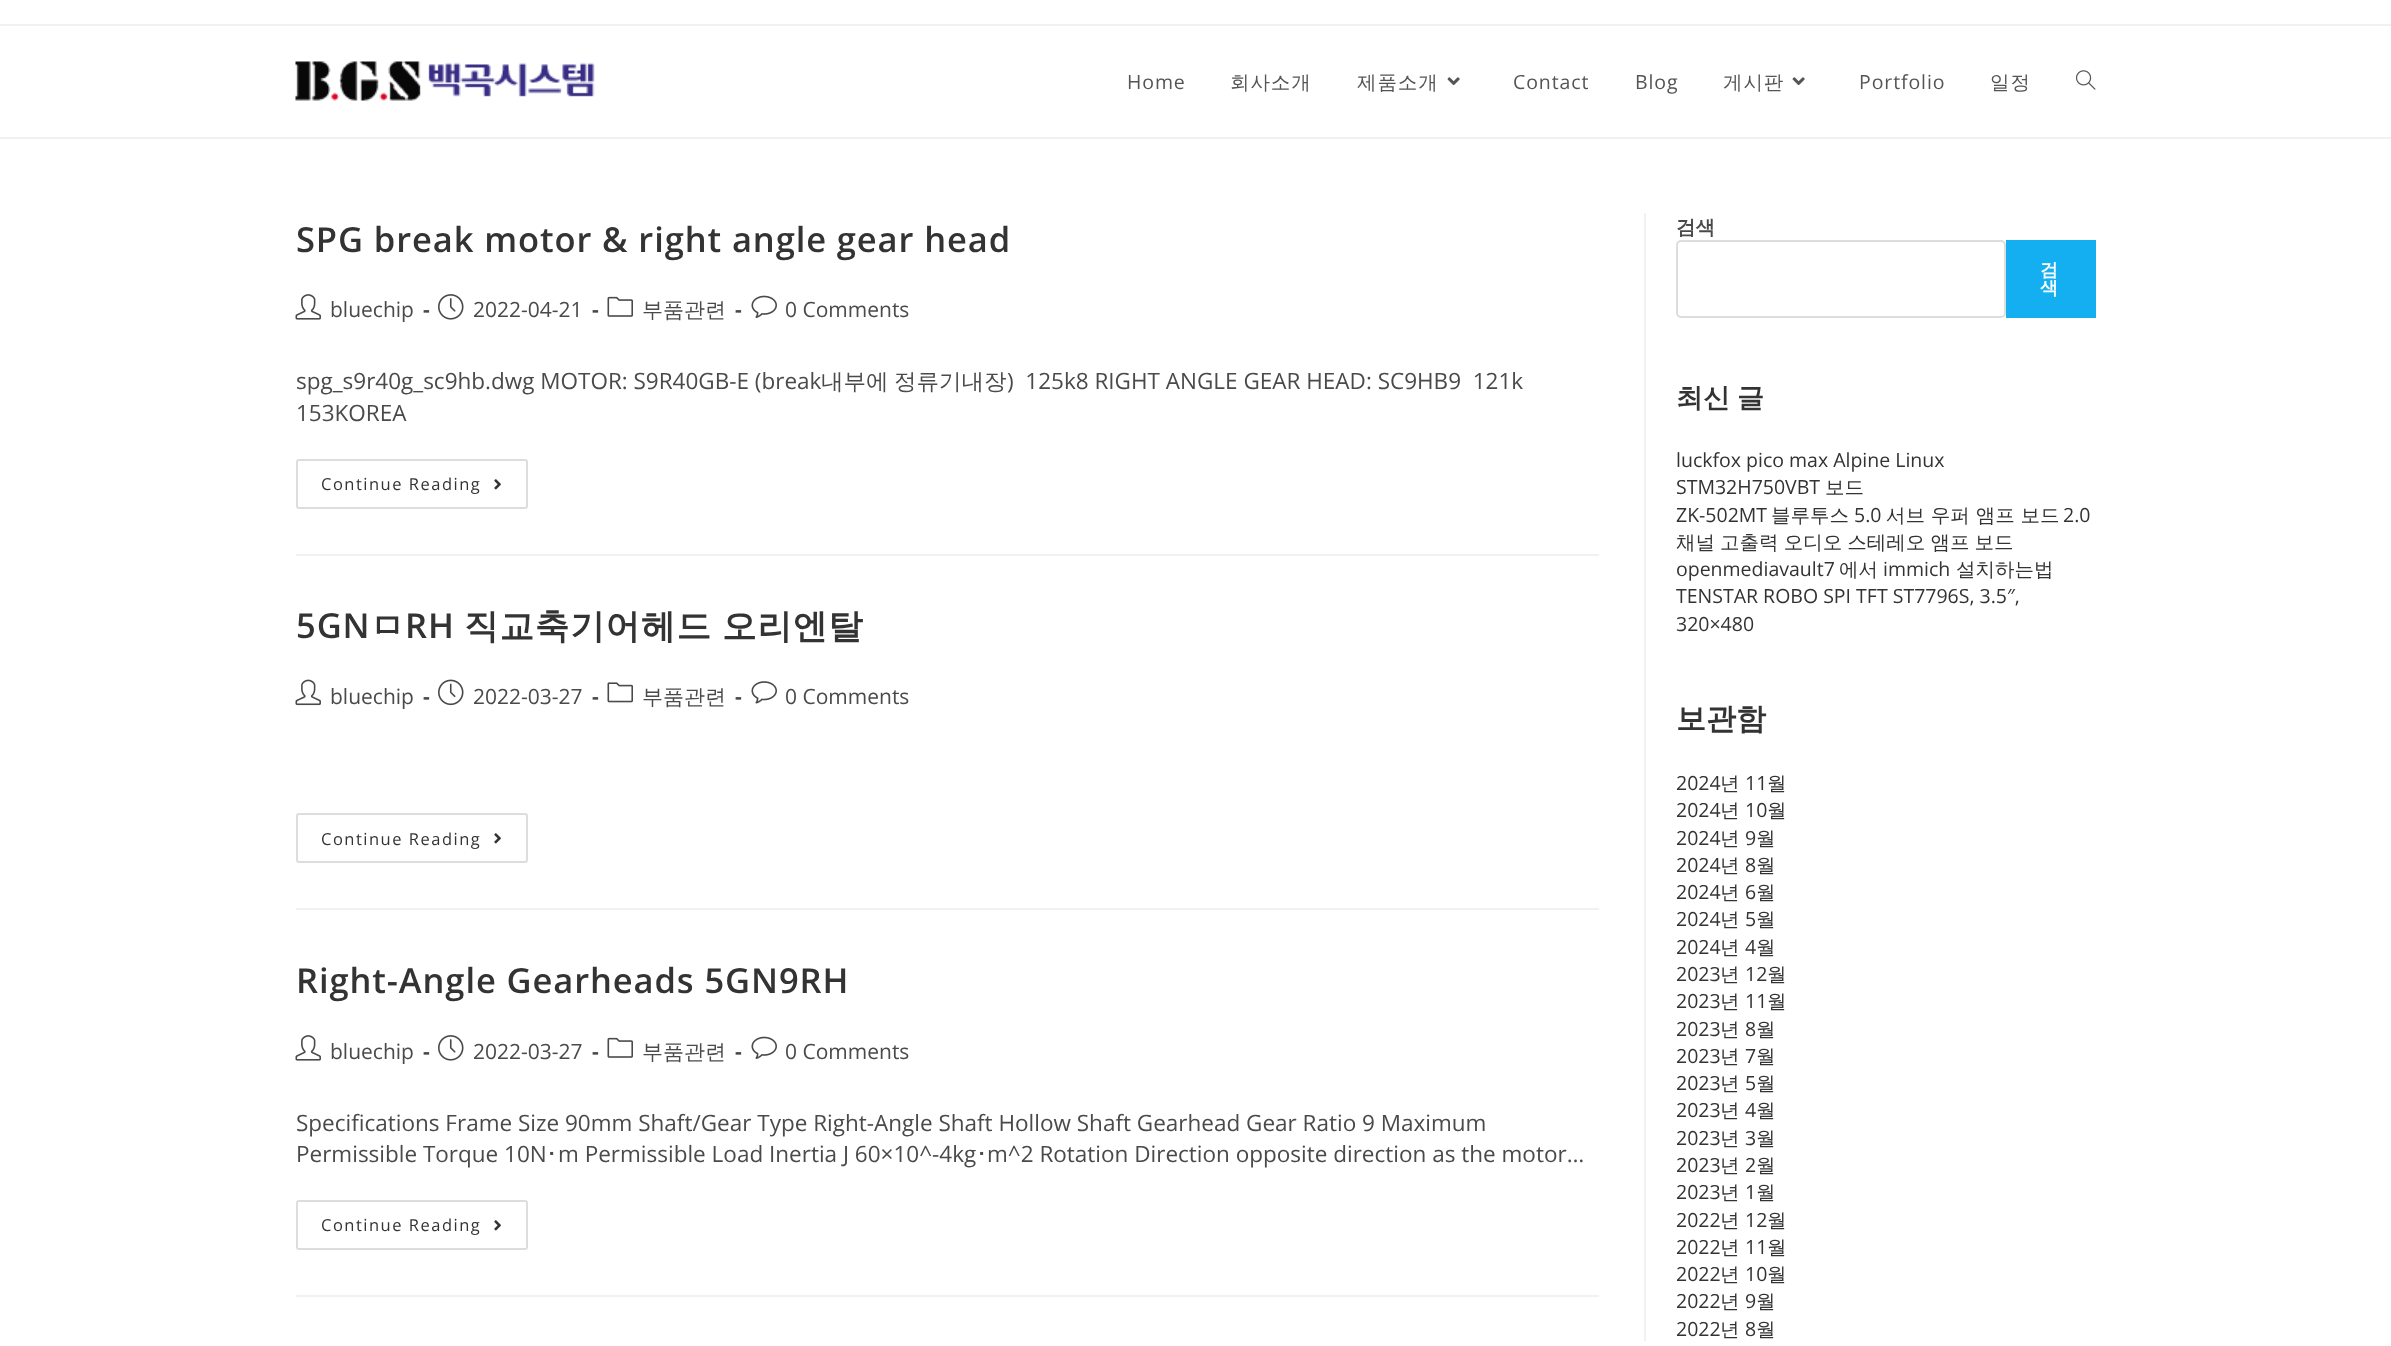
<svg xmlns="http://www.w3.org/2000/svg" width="2391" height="1346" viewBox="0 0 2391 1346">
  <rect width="100%" height="100%" fill="#ffffff"/>
  <rect x="0" y="24" width="2391" height="2" fill="#f1f1f1"/>
  <rect x="0" y="137" width="2391" height="2" fill="#f1f1f1"/>
  <image x="295" y="61" width="300" height="40" href="img1.png"/>
  <text x="1127" y="89" font-family="Open Sans" font-size="19.5" letter-spacing="0.9" fill="#555555">Home</text>
  <text x="1230" y="89" font-family="WenQuanYi Zen Hei" font-size="19.5" font-weight="500" letter-spacing="0.9" fill="#555555">회사소개</text>
  <text x="1357" y="89" font-family="WenQuanYi Zen Hei" font-size="19.5" font-weight="500" letter-spacing="0.9" fill="#555555">제품소개</text>
  <image x="1447" y="77" width="13" height="9" href="img2.png"/>
  <text x="1513" y="89" font-family="Open Sans" font-size="19.5" letter-spacing="0.9" fill="#555555">Contact</text>
  <text x="1635" y="89" font-family="Open Sans" font-size="19.5" letter-spacing="0.9" fill="#555555">Blog</text>
  <text x="1723" y="89" font-family="WenQuanYi Zen Hei" font-size="19.5" font-weight="500" letter-spacing="0.9" fill="#555555">게시판</text>
  <image x="1792" y="77" width="13" height="9" href="img2.png"/>
  <text x="1859" y="89" font-family="Open Sans" font-size="19.5" letter-spacing="0.9" fill="#555555">Portfolio</text>
  <text x="1990" y="89" font-family="WenQuanYi Zen Hei" font-size="19.5" font-weight="500" letter-spacing="0.9" fill="#555555">일정</text>
  <image x="2076" y="70" width="20" height="20" href="img3.png"/>
  <rect x="1644" y="213" width="2" height="1128" fill="#f1f1f1"/>
  <rect x="296" y="554" width="1303" height="2" fill="#f1f1f1"/>
  <text x="296" y="252" font-family="Open Sans" font-size="34.5" font-weight="600" letter-spacing="0.9" fill="#333333">SPG break motor &amp; right angle gear head</text>
  <image x="295" y="294" width="26" height="26" href="img4.png"/>
  <text x="330" y="317" font-family="Open Sans" font-size="21" fill="#4a4a4a">bluechip</text>
  <text x="423" y="317" font-family="Open Sans" font-size="21" font-weight="bold" fill="#4a4a4a">-</text>
  <image x="438" y="294" width="26" height="26" href="img5.png"/>
  <text x="473" y="317" font-family="Open Sans" font-size="21" fill="#4a4a4a">2022-04-21</text>
  <text x="592" y="317" font-family="Open Sans" font-size="21" font-weight="bold" fill="#4a4a4a">-</text>
  <image x="607" y="296" width="26" height="21" href="img6.png"/>
  <text x="642" y="317" font-family="WenQuanYi Zen Hei" font-size="21" font-weight="500" fill="#4a4a4a">부품관련</text>
  <text x="735" y="317" font-family="Open Sans" font-size="21" font-weight="bold" fill="#4a4a4a">-</text>
  <image x="751" y="295" width="26" height="23" href="img7.png"/>
  <text x="785" y="317" font-family="Open Sans" font-size="21" fill="#4a4a4a">0 Comments</text>
  <text x="296" y="389" font-family="Open Sans" font-size="22.5" fill="#4a4a4a">spg_s9r40g_sc9hb.dwg MOTOR: S9R40GB-E (break</text>
  <text x="821" y="389" font-family="WenQuanYi Zen Hei" font-size="22.5" font-weight="500" fill="#4a4a4a">내부에</text>
  <text x="894" y="389" font-family="WenQuanYi Zen Hei" font-size="22.5" font-weight="500" fill="#4a4a4a">정류기내장</text>
  <text x="1007" y="389" font-family="Open Sans" font-size="22.5" fill="#4a4a4a" xml:space="preserve">)  125k8 RIGHT ANGLE GEAR HEAD: SC9HB9  121k</text>
  <text x="296" y="421" font-family="Open Sans" font-size="22.5" fill="#4a4a4a">153KOREA</text>
  <rect x="297" y="460" width="230" height="48" rx="2" fill="none" stroke="#dddddd" stroke-width="2"/>
  <text x="321" y="490" font-family="Open Sans" font-size="16.5" letter-spacing="1.5" fill="#333333">Continue Reading</text>
  <image x="494" y="479" width="7" height="11" href="img8.png"/>
  <rect x="296" y="908" width="1303" height="2" fill="#f1f1f1"/>
  <text x="296" y="638" font-family="Open Sans" font-size="34.5" font-weight="600" letter-spacing="0.9" fill="#333333">5GN</text>
  <text x="370" y="638" font-family="WenQuanYi Zen Hei" font-size="34.5" font-weight="bold" letter-spacing="0.9" fill="#333333">ㅁ</text>
  <text x="405" y="638" font-family="Open Sans" font-size="34.5" font-weight="600" letter-spacing="0.9" fill="#333333">RH</text>
  <text x="464" y="638" word-spacing="-1" font-family="WenQuanYi Zen Hei" font-size="34.5" font-weight="bold" letter-spacing="0.9" fill="#333333">직교축기어헤드 오리엔탈</text>
  <image x="295" y="679" width="26" height="27" href="img9.png"/>
  <text x="330" y="704" font-family="Open Sans" font-size="21" fill="#4a4a4a">bluechip</text>
  <text x="423" y="704" font-family="Open Sans" font-size="21" font-weight="bold" fill="#4a4a4a">-</text>
  <image x="438" y="679" width="26" height="27" href="img10.png"/>
  <text x="473" y="704" font-family="Open Sans" font-size="21" fill="#4a4a4a">2022-03-27</text>
  <text x="592" y="704" font-family="Open Sans" font-size="21" font-weight="bold" fill="#4a4a4a">-</text>
  <image x="607" y="682" width="26" height="21" href="img11.png"/>
  <text x="642" y="704" font-family="WenQuanYi Zen Hei" font-size="21" font-weight="500" fill="#4a4a4a">부품관련</text>
  <text x="735" y="704" font-family="Open Sans" font-size="21" font-weight="bold" fill="#4a4a4a">-</text>
  <image x="751" y="681" width="26" height="23" href="img12.png"/>
  <text x="785" y="704" font-family="Open Sans" font-size="21" fill="#4a4a4a">0 Comments</text>
  <rect x="297" y="814" width="230" height="48" rx="2" fill="none" stroke="#dddddd" stroke-width="2"/>
  <text x="321" y="845" font-family="Open Sans" font-size="16.5" letter-spacing="1.5" fill="#333333">Continue Reading</text>
  <image x="494" y="833" width="7" height="11" href="img8.png"/>
  <rect x="296" y="1295" width="1303" height="2" fill="#f1f1f1"/>
  <text x="296" y="993" font-family="Open Sans" font-size="34.5" font-weight="600" letter-spacing="0.9" fill="#333333">Right-Angle Gearheads 5GN9RH</text>
  <image x="295" y="1035" width="26" height="26" href="img4.png"/>
  <text x="330" y="1059" font-family="Open Sans" font-size="21" fill="#4a4a4a">bluechip</text>
  <text x="423" y="1059" font-family="Open Sans" font-size="21" font-weight="bold" fill="#4a4a4a">-</text>
  <image x="438" y="1035" width="26" height="26" href="img5.png"/>
  <text x="473" y="1059" font-family="Open Sans" font-size="21" fill="#4a4a4a">2022-03-27</text>
  <text x="592" y="1059" font-family="Open Sans" font-size="21" font-weight="bold" fill="#4a4a4a">-</text>
  <image x="607" y="1037" width="26" height="21" href="img6.png"/>
  <text x="642" y="1059" font-family="WenQuanYi Zen Hei" font-size="21" font-weight="500" fill="#4a4a4a">부품관련</text>
  <text x="735" y="1059" font-family="Open Sans" font-size="21" font-weight="bold" fill="#4a4a4a">-</text>
  <image x="751" y="1036" width="26" height="23" href="img7.png"/>
  <text x="785" y="1059" font-family="Open Sans" font-size="21" fill="#4a4a4a">0 Comments</text>
  <text x="296" y="1131" font-family="Open Sans" font-size="22.5" fill="#4a4a4a">Specifications Frame Size 90mm Shaft/Gear Type Right-Angle Shaft Hollow Shaft Gearhead Gear Ratio 9 Maximum</text>
  <text x="296" y="1162" font-family="Open Sans" font-size="22.5" fill="#4a4a4a">Permissible Torque 10N</text>
  <text x="546" y="1162" font-family="IPAGothic" font-size="22.5" fill="#4a4a4a">･</text>
  <text x="558" y="1162" font-family="Open Sans" font-size="22.5" fill="#4a4a4a">m Permissible Load Inertia J 60×10^-4kg</text>
  <text x="976" y="1162" font-family="IPAGothic" font-size="22.5" fill="#4a4a4a">･</text>
  <text x="987" y="1162" font-family="Open Sans" font-size="22.5" fill="#4a4a4a">m^2 Rotation Direction opposite direction as the motor…</text>
  <rect x="297" y="1201" width="230" height="48" rx="2" fill="none" stroke="#dddddd" stroke-width="2"/>
  <text x="321" y="1231" font-family="Open Sans" font-size="16.5" letter-spacing="1.5" fill="#333333">Continue Reading</text>
  <image x="494" y="1220" width="7" height="11" href="img8.png"/>
  <text x="1676" y="234" font-family="WenQuanYi Zen Hei" font-size="19.5" font-weight="bold" fill="#4a4a4a">검색</text>
  <rect x="1677" y="241" width="328" height="76" rx="4" fill="none" stroke="#dddddd" stroke-width="2"/>
  <rect x="2006" y="240" width="90" height="78" fill="#13aff0"/>
  <text x="2040" y="276" font-family="WenQuanYi Zen Hei" font-size="18" font-weight="bold" letter-spacing="2" fill="#ffffff">검</text>
  <text x="2040" y="294" font-family="WenQuanYi Zen Hei" font-size="18" font-weight="bold" letter-spacing="2" fill="#ffffff">색</text>
  <text x="1676" y="407" word-spacing="-1" font-family="WenQuanYi Zen Hei" font-size="27" font-weight="bold" fill="#333333">최신 글</text>
  <text x="1676" y="467" font-family="Open Sans" font-size="19.5" fill="#333333">luckfox pico max Alpine Linux</text>
  <text x="1676" y="494" font-family="Open Sans" font-size="19.5" fill="#333333">STM32H750VBT</text>
  <text x="1825" y="494" font-family="WenQuanYi Zen Hei" font-size="19.5" font-weight="500" fill="#333333">보드</text>
  <text x="1676" y="522" font-family="Open Sans" font-size="19.5" fill="#333333">ZK-502MT</text>
  <text x="1771" y="522" font-family="WenQuanYi Zen Hei" font-size="19.5" font-weight="500" fill="#333333">블루투스</text>
  <text x="1854" y="522" font-family="Open Sans" font-size="19.5" fill="#333333">5.0</text>
  <text x="1886" y="522" font-family="WenQuanYi Zen Hei" font-size="19.5" font-weight="500" fill="#333333">서브 우퍼 앰프 보드</text>
  <text x="2063" y="522" font-family="Open Sans" font-size="19.5" fill="#333333">2.0</text>
  <text x="1676" y="549" word-spacing="-0.75" font-family="WenQuanYi Zen Hei" font-size="19.5" font-weight="500" fill="#333333">채널 고출력 오디오 스테레오 앰프 보드</text>
  <text x="1676" y="576" font-family="Open Sans" font-size="19.5" fill="#333333">openmediavault7</text>
  <text x="1839" y="576" font-family="WenQuanYi Zen Hei" font-size="19.5" font-weight="500" fill="#333333">에서</text>
  <text x="1883" y="576" font-family="Open Sans" font-size="19.5" fill="#333333">immich</text>
  <text x="1956" y="576" font-family="WenQuanYi Zen Hei" font-size="19.5" font-weight="500" fill="#333333">설치하는법</text>
  <text x="1676" y="603" font-family="Open Sans" font-size="19.5" fill="#333333">TENSTAR ROBO SPI TFT ST7796S, 3.5″,</text>
  <text x="1676" y="631" font-family="Open Sans" font-size="19.5" fill="#333333">320×480</text>
  <text x="1676" y="729" font-family="WenQuanYi Zen Hei" font-size="30" font-weight="bold" fill="#333333">보관함</text>
  <text x="1676" y="790" font-family="Open Sans" font-size="19.5" fill="#333333">2024</text>
  <text x="1720" y="790" font-family="WenQuanYi Zen Hei" font-size="19.5" font-weight="500" fill="#333333">년</text>
  <text x="1745" y="790" font-family="Open Sans" font-size="19.5" fill="#333333">11</text>
  <text x="1767" y="790" font-family="WenQuanYi Zen Hei" font-size="19.5" font-weight="500" fill="#333333">월</text>
  <text x="1676" y="817" font-family="Open Sans" font-size="19.5" fill="#333333">2024</text>
  <text x="1720" y="817" font-family="WenQuanYi Zen Hei" font-size="19.5" font-weight="500" fill="#333333">년</text>
  <text x="1745" y="817" font-family="Open Sans" font-size="19.5" fill="#333333">10</text>
  <text x="1767" y="817" font-family="WenQuanYi Zen Hei" font-size="19.5" font-weight="500" fill="#333333">월</text>
  <text x="1676" y="845" font-family="Open Sans" font-size="19.5" fill="#333333">2024</text>
  <text x="1720" y="845" font-family="WenQuanYi Zen Hei" font-size="19.5" font-weight="500" fill="#333333">년</text>
  <text x="1745" y="845" font-family="Open Sans" font-size="19.5" fill="#333333">9</text>
  <text x="1756" y="845" font-family="WenQuanYi Zen Hei" font-size="19.5" font-weight="500" fill="#333333">월</text>
  <text x="1676" y="872" font-family="Open Sans" font-size="19.5" fill="#333333">2024</text>
  <text x="1720" y="872" font-family="WenQuanYi Zen Hei" font-size="19.5" font-weight="500" fill="#333333">년</text>
  <text x="1745" y="872" font-family="Open Sans" font-size="19.5" fill="#333333">8</text>
  <text x="1756" y="872" font-family="WenQuanYi Zen Hei" font-size="19.5" font-weight="500" fill="#333333">월</text>
  <text x="1676" y="899" font-family="Open Sans" font-size="19.5" fill="#333333">2024</text>
  <text x="1720" y="899" font-family="WenQuanYi Zen Hei" font-size="19.5" font-weight="500" fill="#333333">년</text>
  <text x="1745" y="899" font-family="Open Sans" font-size="19.5" fill="#333333">6</text>
  <text x="1756" y="899" font-family="WenQuanYi Zen Hei" font-size="19.5" font-weight="500" fill="#333333">월</text>
  <text x="1676" y="926" font-family="Open Sans" font-size="19.5" fill="#333333">2024</text>
  <text x="1720" y="926" font-family="WenQuanYi Zen Hei" font-size="19.5" font-weight="500" fill="#333333">년</text>
  <text x="1745" y="926" font-family="Open Sans" font-size="19.5" fill="#333333">5</text>
  <text x="1756" y="926" font-family="WenQuanYi Zen Hei" font-size="19.5" font-weight="500" fill="#333333">월</text>
  <text x="1676" y="954" font-family="Open Sans" font-size="19.5" fill="#333333">2024</text>
  <text x="1720" y="954" font-family="WenQuanYi Zen Hei" font-size="19.5" font-weight="500" fill="#333333">년</text>
  <text x="1745" y="954" font-family="Open Sans" font-size="19.5" fill="#333333">4</text>
  <text x="1756" y="954" font-family="WenQuanYi Zen Hei" font-size="19.5" font-weight="500" fill="#333333">월</text>
  <text x="1676" y="981" font-family="Open Sans" font-size="19.5" fill="#333333">2023</text>
  <text x="1720" y="981" font-family="WenQuanYi Zen Hei" font-size="19.5" font-weight="500" fill="#333333">년</text>
  <text x="1745" y="981" font-family="Open Sans" font-size="19.5" fill="#333333">12</text>
  <text x="1767" y="981" font-family="WenQuanYi Zen Hei" font-size="19.5" font-weight="500" fill="#333333">월</text>
  <text x="1676" y="1008" font-family="Open Sans" font-size="19.5" fill="#333333">2023</text>
  <text x="1720" y="1008" font-family="WenQuanYi Zen Hei" font-size="19.5" font-weight="500" fill="#333333">년</text>
  <text x="1745" y="1008" font-family="Open Sans" font-size="19.5" fill="#333333">11</text>
  <text x="1767" y="1008" font-family="WenQuanYi Zen Hei" font-size="19.5" font-weight="500" fill="#333333">월</text>
  <text x="1676" y="1036" font-family="Open Sans" font-size="19.5" fill="#333333">2023</text>
  <text x="1720" y="1036" font-family="WenQuanYi Zen Hei" font-size="19.5" font-weight="500" fill="#333333">년</text>
  <text x="1745" y="1036" font-family="Open Sans" font-size="19.5" fill="#333333">8</text>
  <text x="1756" y="1036" font-family="WenQuanYi Zen Hei" font-size="19.5" font-weight="500" fill="#333333">월</text>
  <text x="1676" y="1063" font-family="Open Sans" font-size="19.5" fill="#333333">2023</text>
  <text x="1720" y="1063" font-family="WenQuanYi Zen Hei" font-size="19.5" font-weight="500" fill="#333333">년</text>
  <text x="1745" y="1063" font-family="Open Sans" font-size="19.5" fill="#333333">7</text>
  <text x="1756" y="1063" font-family="WenQuanYi Zen Hei" font-size="19.5" font-weight="500" fill="#333333">월</text>
  <text x="1676" y="1090" font-family="Open Sans" font-size="19.5" fill="#333333">2023</text>
  <text x="1720" y="1090" font-family="WenQuanYi Zen Hei" font-size="19.5" font-weight="500" fill="#333333">년</text>
  <text x="1745" y="1090" font-family="Open Sans" font-size="19.5" fill="#333333">5</text>
  <text x="1756" y="1090" font-family="WenQuanYi Zen Hei" font-size="19.5" font-weight="500" fill="#333333">월</text>
  <text x="1676" y="1117" font-family="Open Sans" font-size="19.5" fill="#333333">2023</text>
  <text x="1720" y="1117" font-family="WenQuanYi Zen Hei" font-size="19.5" font-weight="500" fill="#333333">년</text>
  <text x="1745" y="1117" font-family="Open Sans" font-size="19.5" fill="#333333">4</text>
  <text x="1756" y="1117" font-family="WenQuanYi Zen Hei" font-size="19.5" font-weight="500" fill="#333333">월</text>
  <text x="1676" y="1145" font-family="Open Sans" font-size="19.5" fill="#333333">2023</text>
  <text x="1720" y="1145" font-family="WenQuanYi Zen Hei" font-size="19.5" font-weight="500" fill="#333333">년</text>
  <text x="1745" y="1145" font-family="Open Sans" font-size="19.5" fill="#333333">3</text>
  <text x="1756" y="1145" font-family="WenQuanYi Zen Hei" font-size="19.5" font-weight="500" fill="#333333">월</text>
  <text x="1676" y="1172" font-family="Open Sans" font-size="19.5" fill="#333333">2023</text>
  <text x="1720" y="1172" font-family="WenQuanYi Zen Hei" font-size="19.5" font-weight="500" fill="#333333">년</text>
  <text x="1745" y="1172" font-family="Open Sans" font-size="19.5" fill="#333333">2</text>
  <text x="1756" y="1172" font-family="WenQuanYi Zen Hei" font-size="19.5" font-weight="500" fill="#333333">월</text>
  <text x="1676" y="1199" font-family="Open Sans" font-size="19.5" fill="#333333">2023</text>
  <text x="1720" y="1199" font-family="WenQuanYi Zen Hei" font-size="19.5" font-weight="500" fill="#333333">년</text>
  <text x="1745" y="1199" font-family="Open Sans" font-size="19.5" fill="#333333">1</text>
  <text x="1756" y="1199" font-family="WenQuanYi Zen Hei" font-size="19.5" font-weight="500" fill="#333333">월</text>
  <text x="1676" y="1227" font-family="Open Sans" font-size="19.5" fill="#333333">2022</text>
  <text x="1720" y="1227" font-family="WenQuanYi Zen Hei" font-size="19.5" font-weight="500" fill="#333333">년</text>
  <text x="1745" y="1227" font-family="Open Sans" font-size="19.5" fill="#333333">12</text>
  <text x="1767" y="1227" font-family="WenQuanYi Zen Hei" font-size="19.5" font-weight="500" fill="#333333">월</text>
  <text x="1676" y="1254" font-family="Open Sans" font-size="19.5" fill="#333333">2022</text>
  <text x="1720" y="1254" font-family="WenQuanYi Zen Hei" font-size="19.5" font-weight="500" fill="#333333">년</text>
  <text x="1745" y="1254" font-family="Open Sans" font-size="19.5" fill="#333333">11</text>
  <text x="1767" y="1254" font-family="WenQuanYi Zen Hei" font-size="19.5" font-weight="500" fill="#333333">월</text>
  <text x="1676" y="1281" font-family="Open Sans" font-size="19.5" fill="#333333">2022</text>
  <text x="1720" y="1281" font-family="WenQuanYi Zen Hei" font-size="19.5" font-weight="500" fill="#333333">년</text>
  <text x="1745" y="1281" font-family="Open Sans" font-size="19.5" fill="#333333">10</text>
  <text x="1767" y="1281" font-family="WenQuanYi Zen Hei" font-size="19.5" font-weight="500" fill="#333333">월</text>
  <text x="1676" y="1308" font-family="Open Sans" font-size="19.5" fill="#333333">2022</text>
  <text x="1720" y="1308" font-family="WenQuanYi Zen Hei" font-size="19.5" font-weight="500" fill="#333333">년</text>
  <text x="1745" y="1308" font-family="Open Sans" font-size="19.5" fill="#333333">9</text>
  <text x="1756" y="1308" font-family="WenQuanYi Zen Hei" font-size="19.5" font-weight="500" fill="#333333">월</text>
  <text x="1676" y="1336" font-family="Open Sans" font-size="19.5" fill="#333333">2022</text>
  <text x="1720" y="1336" font-family="WenQuanYi Zen Hei" font-size="19.5" font-weight="500" fill="#333333">년</text>
  <text x="1745" y="1336" font-family="Open Sans" font-size="19.5" fill="#333333">8</text>
  <text x="1756" y="1336" font-family="WenQuanYi Zen Hei" font-size="19.5" font-weight="500" fill="#333333">월</text>
</svg>
